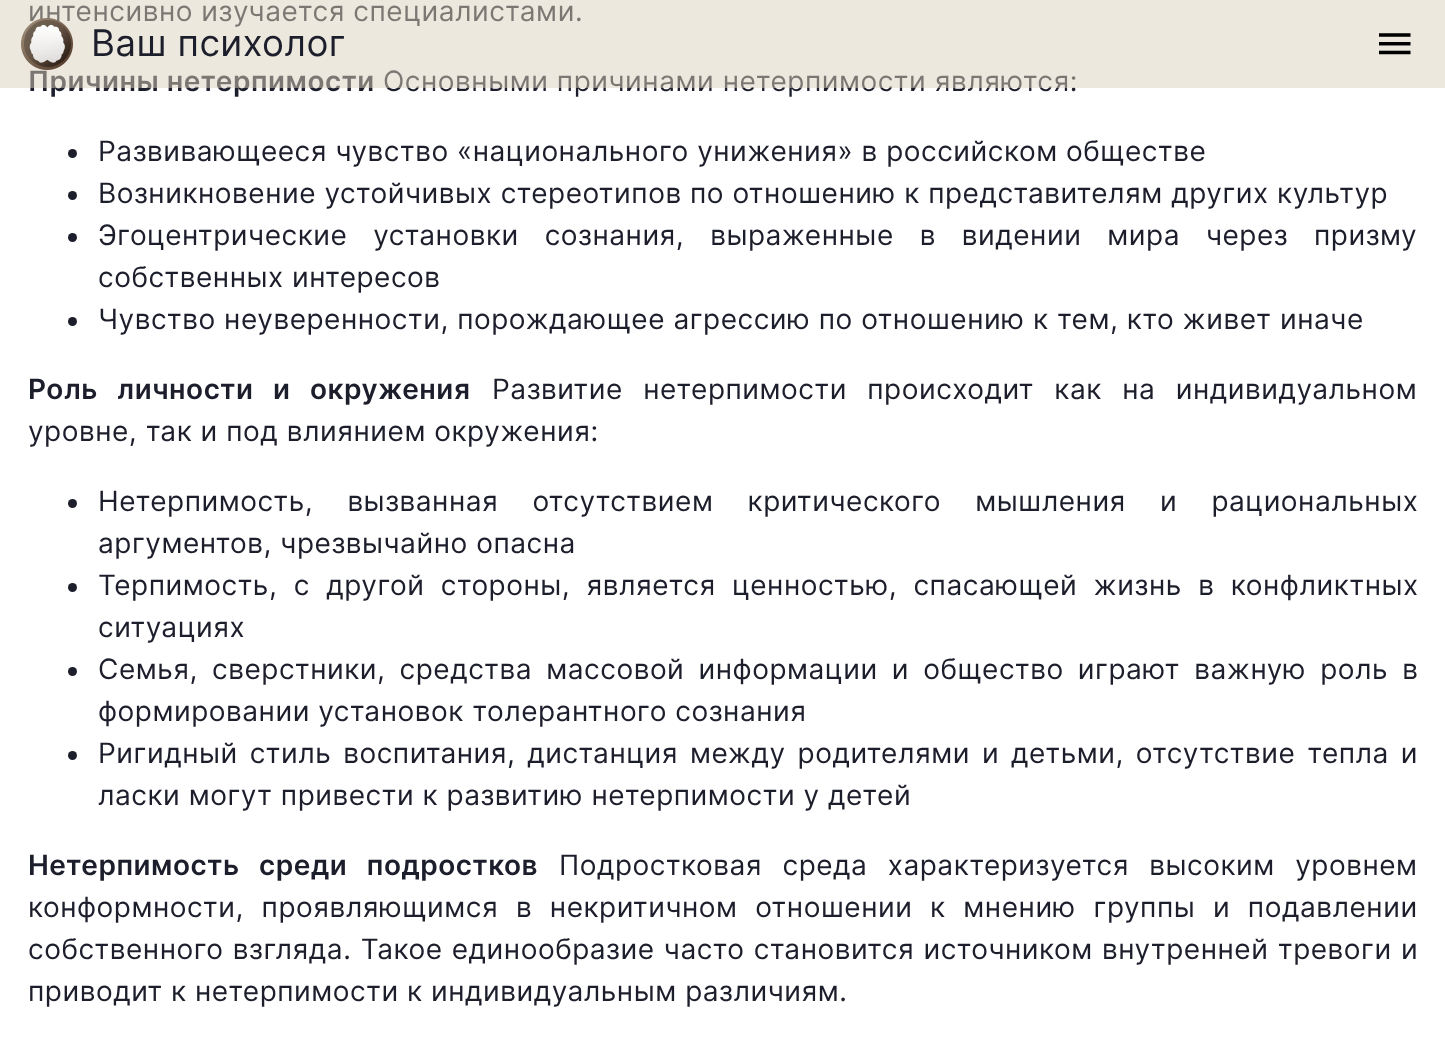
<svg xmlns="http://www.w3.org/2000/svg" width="1445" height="1049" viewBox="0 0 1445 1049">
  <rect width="100%" height="100%" fill="#ffffff"/>
  <text x="28" y="21" font-family="Inter" font-size="28" letter-spacing="0.53" fill="#1d1e2c">интенсивно изучается специалистами.</text>
  <text x="28" y="91" font-family="Inter" font-size="28" font-weight="600" letter-spacing="0.53" fill="#1d1e2c">Причины нетерпимости</text>
  <text x="383" y="91" font-family="Inter" font-size="28" letter-spacing="0.53" fill="#1d1e2c">Основными причинами нетерпимости являются:</text>
  <circle cx="72.5" cy="153.5" r="4.5" fill="#1d1e2c"/>
  <text x="98" y="161" font-family="Inter" font-size="28" letter-spacing="0.53" fill="#1d1e2c">Развивающееся чувство «национального унижения» в российском обществе</text>
  <circle cx="72.5" cy="195.5" r="4.5" fill="#1d1e2c"/>
  <text x="98" y="203" font-family="Inter" font-size="28" letter-spacing="0.53" fill="#1d1e2c">Возникновение устойчивых стереотипов по отношению к представителям других культур</text>
  <circle cx="72.5" cy="237.5" r="4.5" fill="#1d1e2c"/>
  <text x="98" y="245" word-spacing="17.5" font-family="Inter" font-size="28" letter-spacing="0.53" fill="#1d1e2c">Эгоцентрические установки сознания, выраженные в видении мира через призму</text>
  <text x="98" y="287" font-family="Inter" font-size="28" letter-spacing="0.53" fill="#1d1e2c">собственных интересов</text>
  <circle cx="72.5" cy="321.5" r="4.5" fill="#1d1e2c"/>
  <text x="98" y="329" font-family="Inter" font-size="28" letter-spacing="0.53" fill="#1d1e2c">Чувство неуверенности, порождающее агрессию по отношению к тем, кто живет иначе</text>
  <text x="28" y="399" word-spacing="12" font-family="Inter" font-size="28" font-weight="600" letter-spacing="0.53" fill="#1d1e2c">Роль личности и окружения</text>
  <text x="492" y="399" word-spacing="12" font-family="Inter" font-size="28" letter-spacing="0.53" fill="#1d1e2c">Развитие нетерпимости происходит как на индивидуальном</text>
  <text x="28" y="441" font-family="Inter" font-size="28" letter-spacing="0.53" fill="#1d1e2c">уровне, так и под влиянием окружения:</text>
  <circle cx="72.5" cy="503.5" r="4.5" fill="#1d1e2c"/>
  <text x="98" y="511" word-spacing="25.75" font-family="Inter" font-size="28" letter-spacing="0.53" fill="#1d1e2c">Нетерпимость, вызванная отсутствием критического мышления и рациональных</text>
  <text x="98" y="553" font-family="Inter" font-size="28" letter-spacing="0.53" fill="#1d1e2c">аргументов, чрезвычайно опасна</text>
  <circle cx="72.5" cy="587.5" r="4.5" fill="#1d1e2c"/>
  <text x="98" y="595" word-spacing="8" font-family="Inter" font-size="28" letter-spacing="0.53" fill="#1d1e2c">Терпимость, с другой стороны, является ценностью, спасающей жизнь в конфликтных</text>
  <text x="98" y="637" font-family="Inter" font-size="28" letter-spacing="0.53" fill="#1d1e2c">ситуациях</text>
  <circle cx="72.5" cy="671.5" r="4.5" fill="#1d1e2c"/>
  <text x="98" y="679" word-spacing="5.75" font-family="Inter" font-size="28" letter-spacing="0.53" fill="#1d1e2c">Семья, сверстники, средства массовой информации и общество играют важную роль в</text>
  <text x="98" y="721" font-family="Inter" font-size="28" letter-spacing="0.53" fill="#1d1e2c">формировании установок толерантного сознания</text>
  <circle cx="72.5" cy="755.5" r="4.5" fill="#1d1e2c"/>
  <text x="98" y="763" word-spacing="3.5" font-family="Inter" font-size="28" letter-spacing="0.53" fill="#1d1e2c">Ригидный стиль воспитания, дистанция между родителями и детьми, отсутствие тепла и</text>
  <text x="98" y="805" font-family="Inter" font-size="28" letter-spacing="0.53" fill="#1d1e2c">ласки могут привести к развитию нетерпимости у детей</text>
  <text x="28" y="875" word-spacing="12" font-family="Inter" font-size="28" font-weight="600" letter-spacing="0.53" fill="#1d1e2c">Нетерпимость среди подростков</text>
  <text x="559" y="875" word-spacing="12" font-family="Inter" font-size="28" letter-spacing="0.53" fill="#1d1e2c">Подростковая среда характеризуется высоким уровнем</text>
  <text x="28" y="917" word-spacing="9.25" font-family="Inter" font-size="28" letter-spacing="0.53" fill="#1d1e2c">конформности, проявляющимся в некритичном отношении к мнению группы и подавлении</text>
  <text x="28" y="959" word-spacing="0.9" font-family="Inter" font-size="28" letter-spacing="0.53" fill="#1d1e2c">собственного взгляда. Такое единообразие часто становится источником внутренней тревоги и</text>
  <text x="28" y="1001" font-family="Inter" font-size="28" letter-spacing="0.53" fill="#1d1e2c">приводит к нетерпимости к индивидуальным различиям.</text>
  <rect x="0" y="0" width="1445" height="88" fill="#dad1bc" fill-opacity="0.5"/>
  <image x="21" y="18" width="52" height="52" href="img1.png"/>
  <text x="91" y="56" font-family="Inter" font-size="36.75" letter-spacing="0.4" fill="#1d1e2c">Ваш психолог</text>
  <image x="1379" y="33" width="32" height="22" href="img2.png"/>
</svg>
